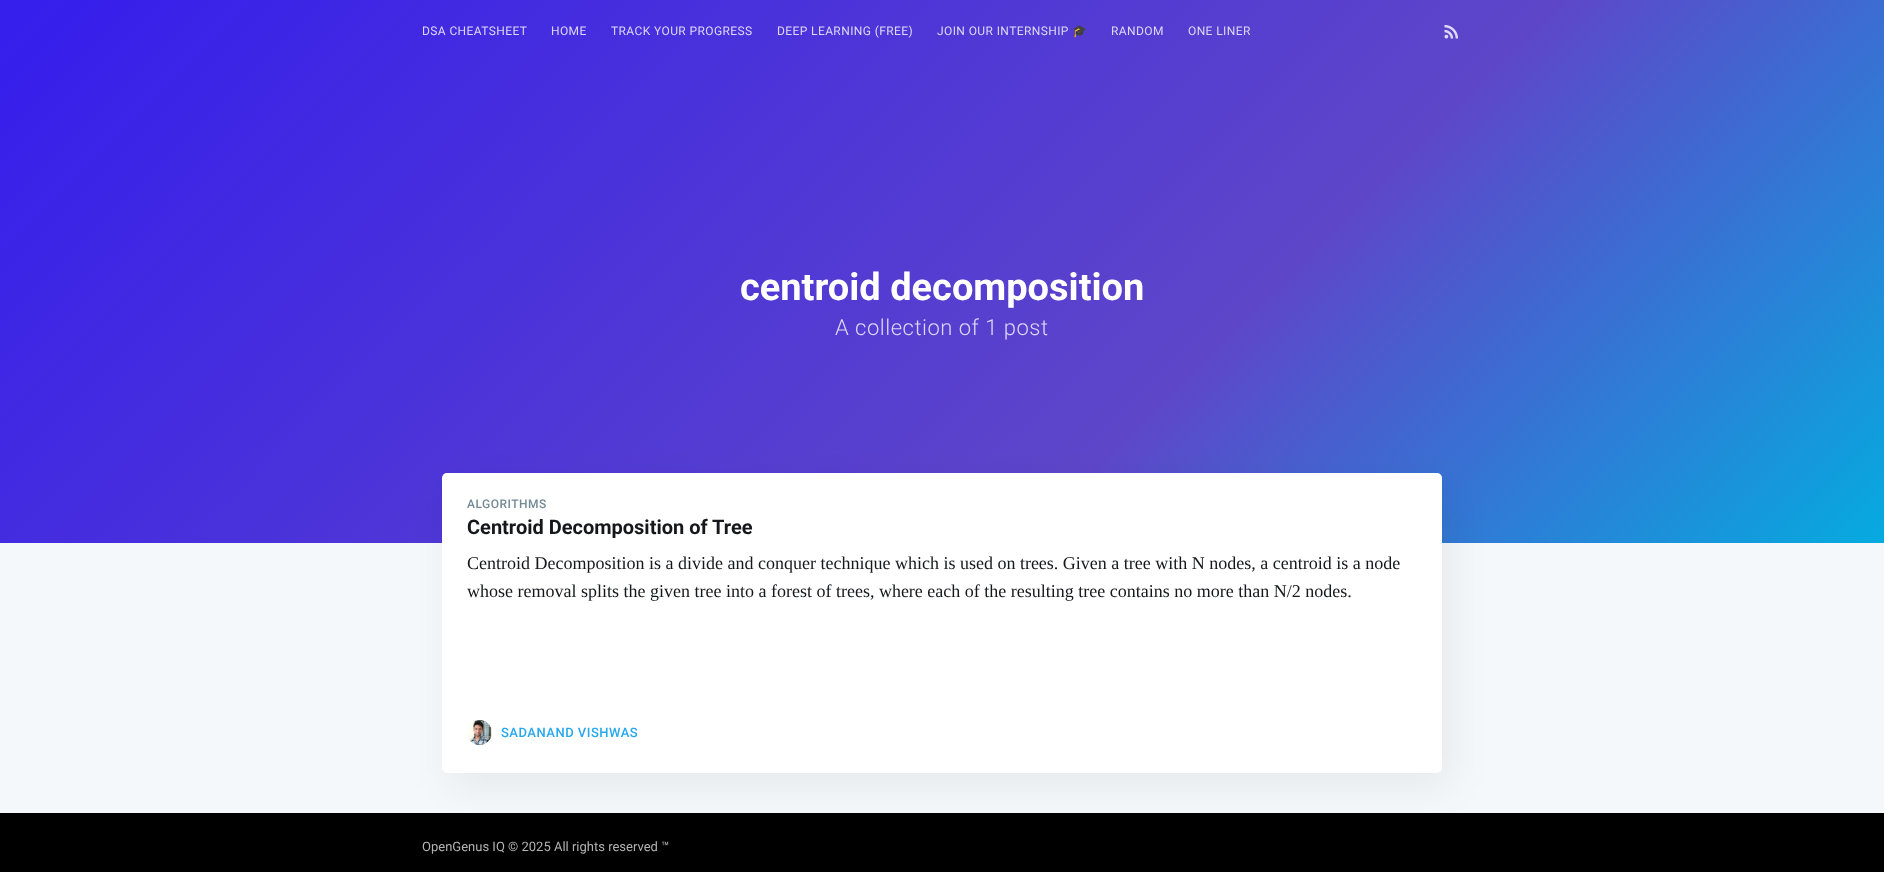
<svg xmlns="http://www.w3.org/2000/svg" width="1884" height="872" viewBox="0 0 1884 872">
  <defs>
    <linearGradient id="g1" gradientUnits="userSpaceOnUse" x1="335" y1="-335" x2="1549" y2="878"><stop offset="0" stop-color="#351ded"/><stop offset="0.64" stop-color="#5e46c9"/><stop offset="1" stop-color="#05abe0"/></linearGradient>
    <filter id="blur1" x="-50%" y="-200%" width="200%" height="500%"><feGaussianBlur stdDeviation="19"/></filter>
  </defs>
  <rect width="100%" height="100%" fill="#f4f8fb"/>
  <rect x="0" y="0" width="1884" height="543" fill="url(#g1)"/>
  <text x="422" y="35" font-family="Roboto" font-size="12" letter-spacing="0.4" fill="#ddd8f6">DSA CHEATSHEET</text>
  <text x="551" y="35" font-family="Roboto" font-size="12" letter-spacing="0.4" fill="#ddd8f6">HOME</text>
  <text x="611" y="35" font-family="Roboto" font-size="12" letter-spacing="0.4" fill="#ddd8f6">TRACK YOUR PROGRESS</text>
  <text x="777" y="35" font-family="Roboto" font-size="12" letter-spacing="0.4" fill="#ddd8f6">DEEP LEARNING (FREE)</text>
  <text x="937" y="35" font-family="Roboto" font-size="12" letter-spacing="0.4" fill="#ddd8f6">JOIN OUR INTERNSHIP</text>
  <text x="1072" y="35" font-family="Noto Color Emoji" font-size="12" letter-spacing="0.4" fill="#ddd8f6">🎓</text>
  <text x="1111" y="35" font-family="Roboto" font-size="12" letter-spacing="0.4" fill="#ddd8f6">RANDOM</text>
  <text x="1188" y="35" font-family="Roboto" font-size="12" letter-spacing="0.4" fill="#ddd8f6">ONE LINER</text>
  <image x="1444" y="24" width="15" height="15" href="img1.png"/>
  <text x="740" y="300" font-family="Roboto" font-size="38" font-weight="bold" fill="#ffffff">centroid decomposition</text>
  <text x="835" y="335" font-family="Roboto" font-size="22" font-weight="300" letter-spacing="0.5" fill="#ddd8f6">A collection of 1 post</text>
  <rect x="0" y="813" width="1884" height="59" fill="#000000"/>
  <rect x="450" y="487" width="1000" height="300" rx="5" fill="#272c31" fill-opacity="0.06" filter="url(#blur1)"/>
  <rect x="442" y="473" width="1000" height="300" rx="5" fill="#ffffff"/>
  <text x="467" y="508" font-family="Roboto" font-size="12" font-weight="500" letter-spacing="0.5" fill="#738a94">ALGORITHMS</text>
  <text x="467" y="534" font-family="Roboto" font-size="20" font-weight="bold" fill="#15171a">Centroid Decomposition of Tree</text>
  <text x="467" y="569" font-family="Liberation Serif" font-size="18" fill="#15171a">Centroid Decomposition is a divide and conquer technique which is used on trees. Given a tree with N nodes, a centroid is a node</text>
  <text x="467" y="597" font-family="Liberation Serif" font-size="18" fill="#15171a">whose removal splits the given tree into a forest of trees, where each of the resulting tree contains no more than N/2 nodes.</text>
  <image x="467" y="720" width="25" height="25" href="img2.png"/>
  <text x="501" y="737" font-family="Roboto" font-size="13" font-weight="500" letter-spacing="0.5" fill="#26a8ed">SADANAND VISHWAS</text>
  <text x="422" y="851" font-family="Roboto" font-size="13" fill="#b3b3b3">OpenGenus IQ © 2025 All rights reserved ™</text>
</svg>
